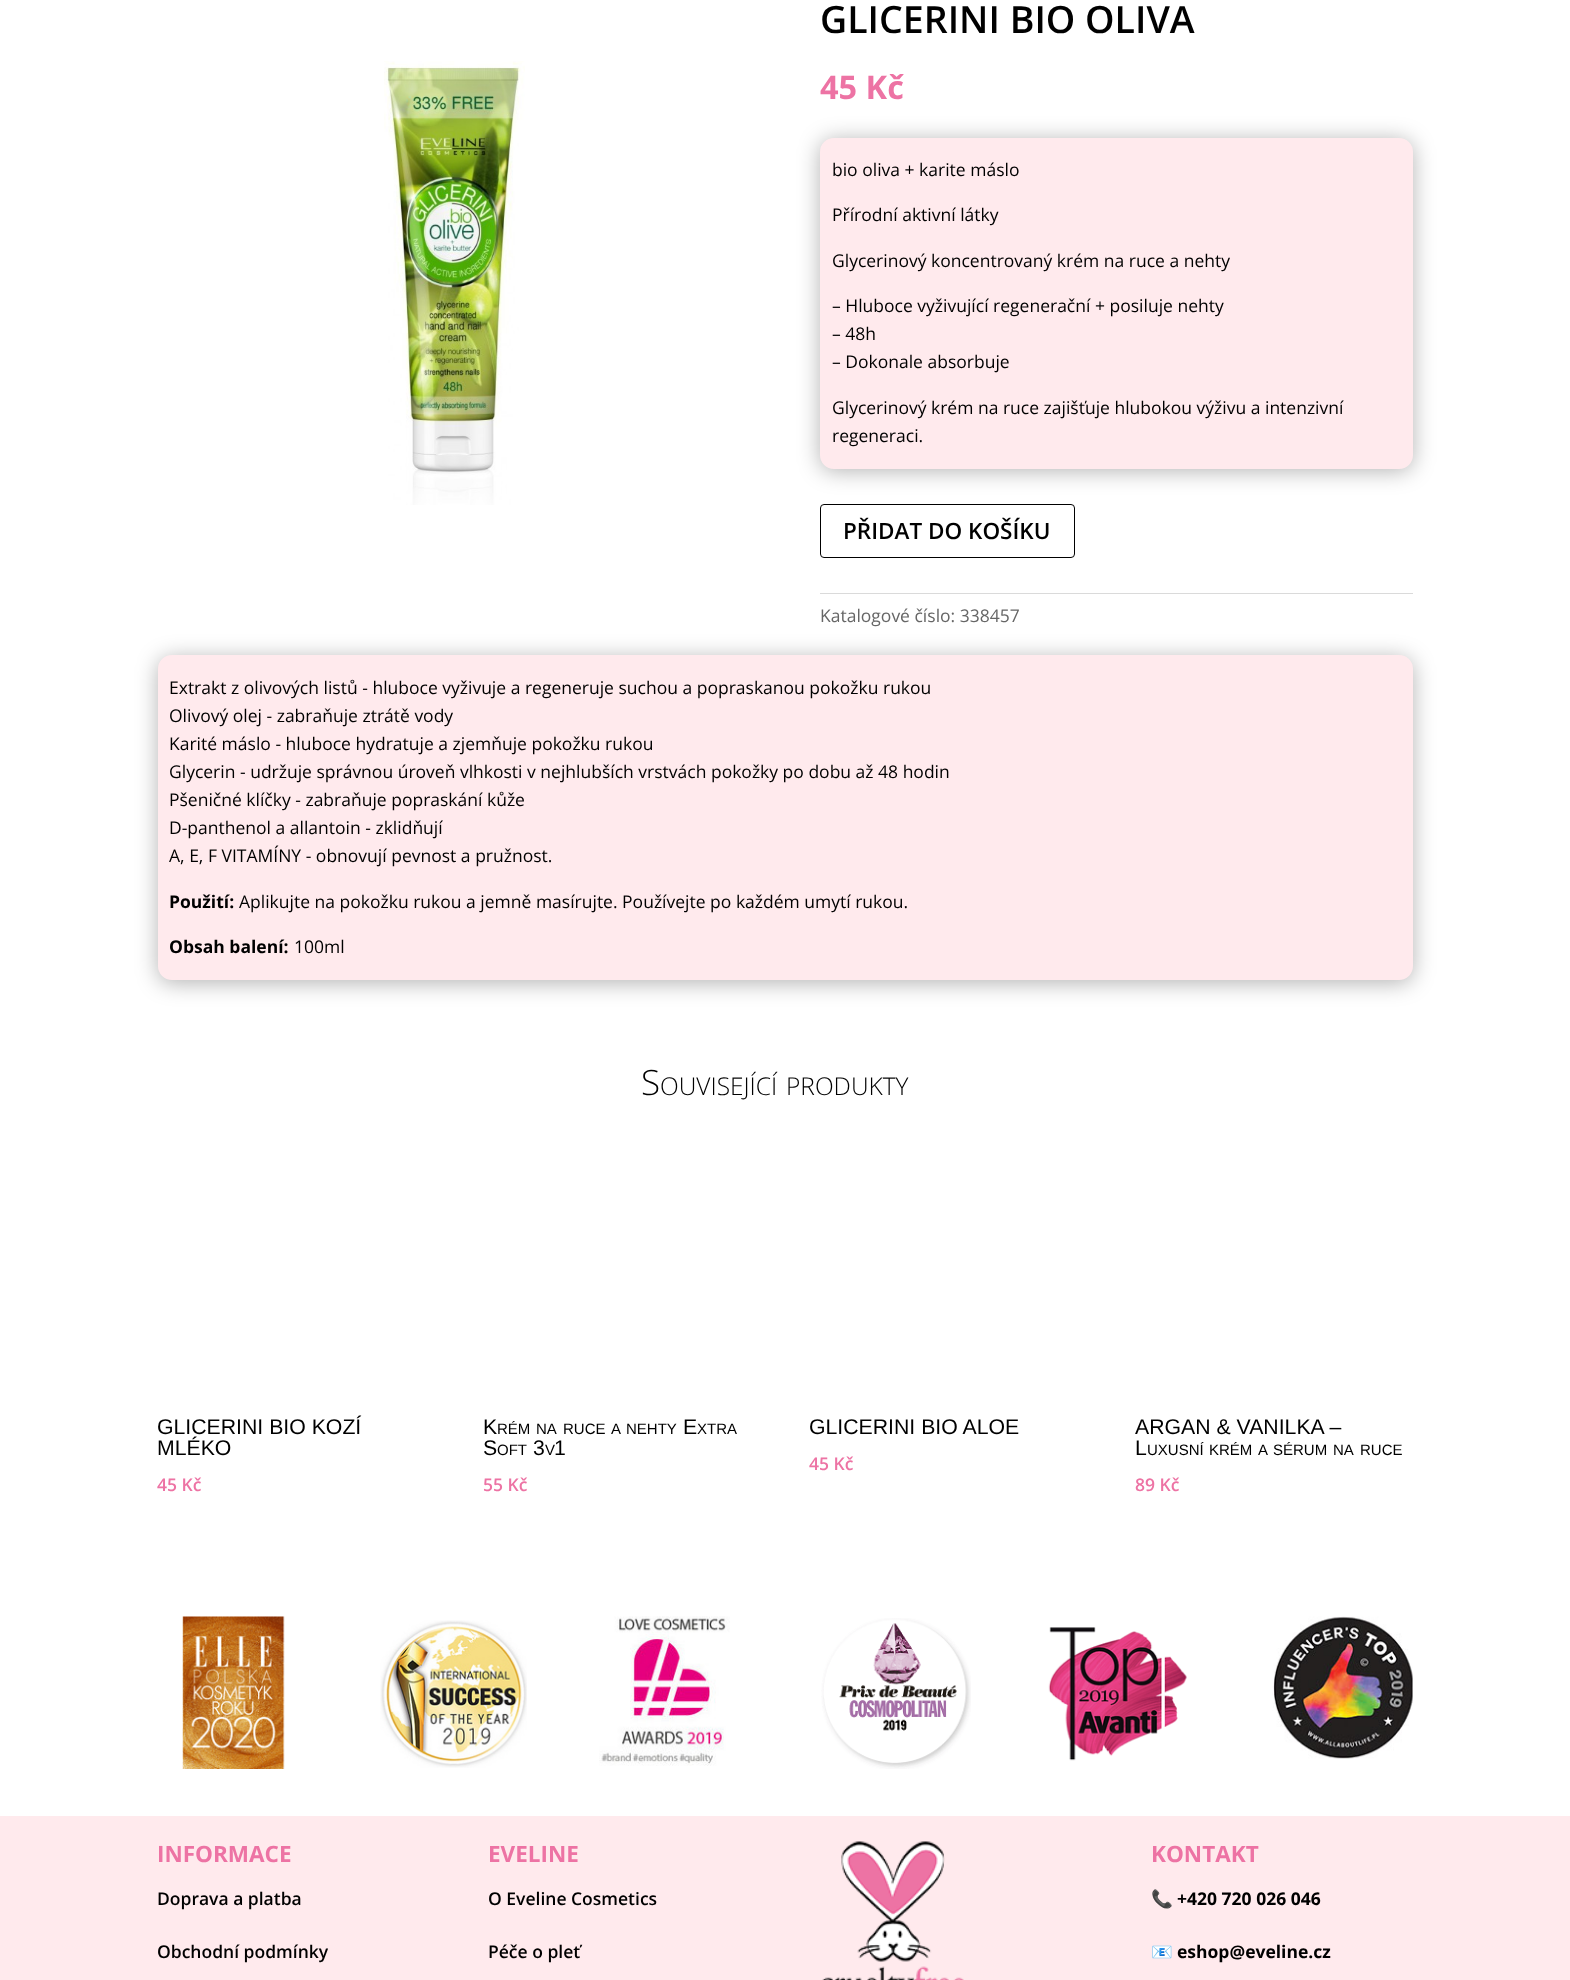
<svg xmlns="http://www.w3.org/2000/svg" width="1570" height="1980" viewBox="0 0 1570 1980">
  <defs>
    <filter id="blur1" x="-50%" y="-200%" width="200%" height="500%"><feGaussianBlur stdDeviation="11"/></filter>
  </defs>
  <rect width="100%" height="100%" fill="#ffffff"/>
  <image x="384" y="61" width="141" height="444" href="img1.png"/>
  <text x="820" y="33" font-family="Open Sans" font-size="37.5" font-weight="600" fill="#000000">GLICERINI BIO OLIVA</text>
  <text x="820" y="99" font-family="Open Sans" font-size="32.5" font-weight="bold" fill="#ed73a4">45 Kč</text>
  <rect x="820" y="140" width="593" height="331" rx="14" fill="#000000" fill-opacity="0.3" filter="url(#blur1)"/>
  <rect x="826.5" y="144.5" width="580" height="318" rx="7.5" fill="#ffeaed" stroke="#ffeaed" stroke-width="13"/>
  <text x="832" y="176" font-family="Open Sans" font-size="17.5" fill="#000000">bio oliva + karite máslo</text>
  <text x="832" y="221" font-family="Open Sans" font-size="17.5" fill="#000000">Přírodní aktivní látky</text>
  <text x="832" y="267" font-family="Open Sans" font-size="17.5" fill="#000000">Glycerinový koncentrovaný krém na ruce a nehty</text>
  <text x="832" y="312" font-family="Open Sans" font-size="17.5" fill="#000000">– Hluboce vyživující regenerační + posiluje nehty</text>
  <text x="832" y="340" font-family="Open Sans" font-size="17.5" fill="#000000">– 48h</text>
  <text x="832" y="368" font-family="Open Sans" font-size="17.5" fill="#000000">– Dokonale absorbuje</text>
  <text x="832" y="414" font-family="Open Sans" font-size="17.5" fill="#000000">Glycerinový krém na ruce zajišťuje hlubokou výživu a intenzivní</text>
  <text x="832" y="442" font-family="Open Sans" font-size="17.5" fill="#000000">regeneraci.</text>
  <rect x="820.5" y="504.5" width="254" height="53" rx="3.5" fill="none" stroke="#000000"/>
  <text x="843" y="539" font-family="Open Sans" font-size="22.5" font-weight="600" fill="#000000">PŘIDAT DO KOŠÍKU</text>
  <rect x="820" y="593" width="593" height="1" fill="#dadada"/>
  <text x="820" y="622" font-family="Open Sans" font-size="17.5" fill="#666666">Katalogové číslo: 338457</text>
  <rect x="158" y="658" width="1255" height="325" rx="14" fill="#000000" fill-opacity="0.3" filter="url(#blur1)"/>
  <rect x="164.5" y="661.5" width="1242" height="312" rx="7.5" fill="#ffeaed" stroke="#ffeaed" stroke-width="13"/>
  <text x="169" y="694" font-family="Open Sans" font-size="17.5" fill="#000000">Extrakt z olivových listů - hluboce vyživuje a regeneruje suchou a popraskanou pokožku rukou</text>
  <text x="169" y="722" font-family="Open Sans" font-size="17.5" fill="#000000">Olivový olej - zabraňuje ztrátě vody</text>
  <text x="169" y="750" font-family="Open Sans" font-size="17.5" fill="#000000">Karité máslo - hluboce hydratuje a zjemňuje pokožku rukou</text>
  <text x="169" y="778" font-family="Open Sans" font-size="17.5" fill="#000000">Glycerin - udržuje správnou úroveň vlhkosti v nejhlubších vrstvách pokožky po dobu až 48 hodin</text>
  <text x="169" y="806" font-family="Open Sans" font-size="17.5" fill="#000000">Pšeničné klíčky - zabraňuje popraskání kůže</text>
  <text x="169" y="834" font-family="Open Sans" font-size="17.5" fill="#000000">D-panthenol a allantoin - zklidňují</text>
  <text x="169" y="862" font-family="Open Sans" font-size="17.5" fill="#000000">A, E, F VITAMÍNY - obnovují pevnost a pružnost.</text>
  <text x="169" y="908" font-family="Open Sans" font-size="17.5" font-weight="bold" fill="#000000">Použití:</text>
  <text x="239" y="908" font-family="Open Sans" font-size="17.5" fill="#000000">Aplikujte na pokožku rukou a jemně masírujte. Používejte po každém umytí rukou.</text>
  <text x="169" y="953" font-family="Open Sans" font-size="17.5" font-weight="bold" fill="#000000">Obsah balení:</text>
  <text x="294" y="953" font-family="Open Sans" font-size="17.5" fill="#000000">100ml</text>
  <text x="641" y="1095" font-family="Open Sans" font-size="35" font-weight="300" fill="#000000">S</text>
  <text x="660" y="1095" font-family="Open Sans" font-size="24.5" font-weight="300" fill="#000000">OUVISEJÍCÍ</text>
  <text x="786" y="1095" font-family="Open Sans" font-size="24.5" font-weight="300" fill="#000000">PRODUKTY</text>
  <text x="157" y="1434" font-family="Liberation Sans" font-size="21.25" fill="#000000">GLICERINI BIO KOZÍ</text>
  <text x="157" y="1455" font-family="Liberation Sans" font-size="21.25" fill="#000000">MLÉKO</text>
  <text x="157" y="1491" font-family="Open Sans" font-size="17.5" font-weight="600" fill="#ed73a4">45 Kč</text>
  <text x="483" y="1434" font-family="Liberation Sans" font-size="21.25" fill="#000000">K</text>
  <text x="497" y="1434" font-family="Liberation Sans" font-size="15" fill="#000000">RÉM</text>
  <text x="536" y="1434" font-family="Liberation Sans" font-size="15" fill="#000000">NA</text>
  <text x="563" y="1434" font-family="Liberation Sans" font-size="15" fill="#000000">RUCE</text>
  <text x="611" y="1434" font-family="Liberation Sans" font-size="15" fill="#000000">A</text>
  <text x="626" y="1434" font-family="Liberation Sans" font-size="15" fill="#000000">NEHTY</text>
  <text x="683" y="1434" font-family="Liberation Sans" font-size="21.25" fill="#000000">E</text>
  <text x="697" y="1434" font-family="Liberation Sans" font-size="15" fill="#000000">XTRA</text>
  <text x="483" y="1455" font-family="Liberation Sans" font-size="21.25" fill="#000000">S</text>
  <text x="497" y="1455" font-family="Liberation Sans" font-size="15" fill="#000000">OFT</text>
  <text x="533" y="1455" font-family="Liberation Sans" font-size="21.25" fill="#000000">3</text>
  <text x="545" y="1455" font-family="Liberation Sans" font-size="15" fill="#000000">V</text>
  <text x="554" y="1455" font-family="Liberation Sans" font-size="21.25" fill="#000000">1</text>
  <text x="483" y="1491" font-family="Open Sans" font-size="17.5" font-weight="600" fill="#ed73a4">55 Kč</text>
  <text x="809" y="1434" font-family="Liberation Sans" font-size="21.25" fill="#000000">GLICERINI BIO ALOE</text>
  <text x="809" y="1470" font-family="Open Sans" font-size="17.5" font-weight="600" fill="#ed73a4">45 Kč</text>
  <text x="1135" y="1434" font-family="Liberation Sans" font-size="21.25" fill="#000000">ARGAN &amp; VANILKA –</text>
  <text x="1135" y="1455" font-family="Liberation Sans" font-size="21.25" fill="#000000">L</text>
  <text x="1147" y="1455" font-family="Liberation Sans" font-size="15" fill="#000000">UXUSNÍ</text>
  <text x="1209" y="1455" font-family="Liberation Sans" font-size="15" fill="#000000">KRÉM</text>
  <text x="1258" y="1455" font-family="Liberation Sans" font-size="15" fill="#000000">A</text>
  <text x="1273" y="1455" font-family="Liberation Sans" font-size="15" fill="#000000">SÉRUM</text>
  <text x="1333" y="1455" font-family="Liberation Sans" font-size="15" fill="#000000">NA</text>
  <text x="1360" y="1455" font-family="Liberation Sans" font-size="15" fill="#000000">RUCE</text>
  <text x="1135" y="1491" font-family="Open Sans" font-size="17.5" font-weight="600" fill="#ed73a4">89 Kč</text>
  <image x="182" y="1616" width="103" height="153" href="img2.png"/>
  <image x="380" y="1620" width="147" height="148" href="img3.png"/>
  <image x="599" y="1616" width="131" height="150" href="img4.png"/>
  <image x="821" y="1618" width="150" height="151" href="img5.png"/>
  <image x="1048" y="1627" width="139" height="134" href="img6.png"/>
  <image x="1272" y="1616" width="141" height="143" href="img7.png"/>
  <rect x="0" y="1816" width="1570" height="164" fill="#ffeaed"/>
  <text x="157" y="1862" font-family="Open Sans" font-size="22.5" font-weight="bold" fill="#ed73a4">INFORMACE</text>
  <text x="157" y="1905" font-family="Open Sans" font-size="17.5" font-weight="600" fill="#000000">Doprava a platba</text>
  <text x="157" y="1958" font-family="Open Sans" font-size="17.5" font-weight="600" fill="#000000">Obchodní podmínky</text>
  <text x="488" y="1862" font-family="Open Sans" font-size="22.5" font-weight="bold" fill="#ed73a4">EVELINE</text>
  <text x="488" y="1905" font-family="Open Sans" font-size="17.5" font-weight="600" fill="#000000">O Eveline Cosmetics</text>
  <text x="488" y="1958" font-family="Open Sans" font-size="17.5" font-weight="600" fill="#000000">Péče o pleť</text>
  <image x="822" y="1841" width="142" height="139" href="img8.png"/>
  <text x="1151" y="1862" font-family="Open Sans" font-size="22.5" font-weight="bold" fill="#ed73a4">KONTAKT</text>
  <text x="1151" y="1905" font-family="Noto Color Emoji" font-size="17.5" font-weight="bold" fill="#000000">📞</text>
  <text x="1177" y="1905" font-family="Open Sans" font-size="17.5" font-weight="bold" fill="#000000">+420 720 026 046</text>
  <text x="1151" y="1958" font-family="Noto Color Emoji" font-size="17.5" font-weight="bold" fill="#000000">📧</text>
  <text x="1177" y="1958" font-family="Open Sans" font-size="17.5" font-weight="bold" fill="#000000">eshop@eveline.cz</text>
</svg>
